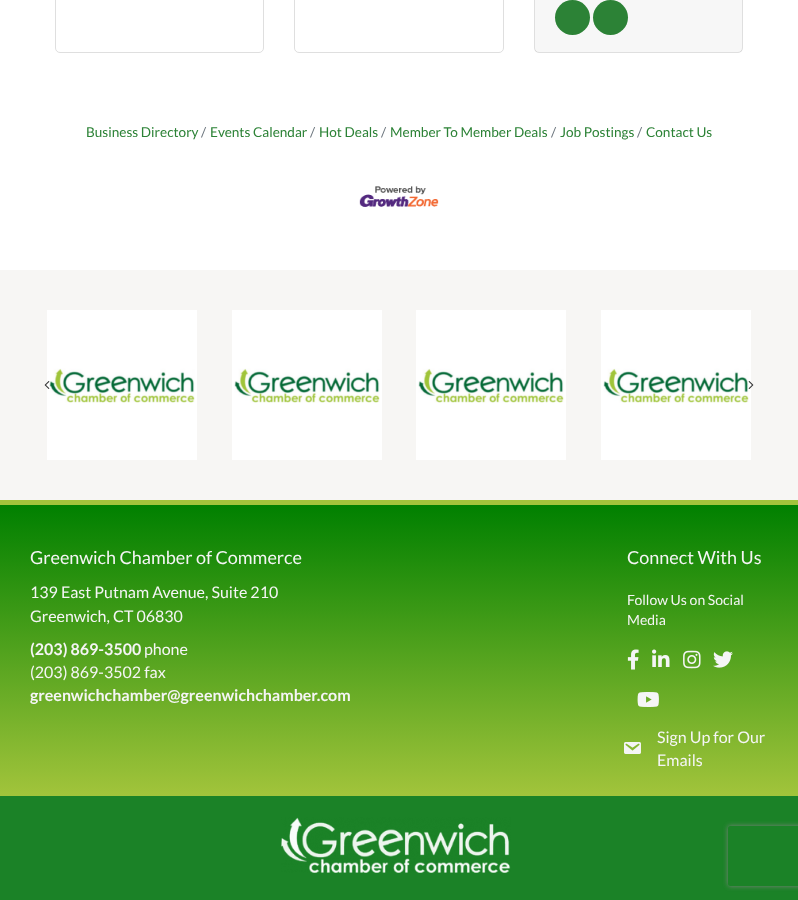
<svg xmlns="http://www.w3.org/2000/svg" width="798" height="900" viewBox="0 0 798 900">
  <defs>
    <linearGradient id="g1" gradientUnits="userSpaceOnUse" x1="399" y1="505" x2="399" y2="796"><stop offset="0" stop-color="#008000"/><stop offset="1" stop-color="#a2c43b"/></linearGradient>
    <clipPath id="clip1"><path d="M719 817H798V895H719ZM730 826H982C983 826 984 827 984 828V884C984 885 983 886 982 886H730C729 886 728 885 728 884V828C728 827 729 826 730 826Z" clip-rule="evenodd"/></clipPath>
    <filter id="blur1" x="-50%" y="-200%" width="200%" height="500%"><feGaussianBlur stdDeviation="2.5"/></filter>
  </defs>
  <rect width="100%" height="100%" fill="#f7f6f4"/>
  <rect x="0" y="0" width="798" height="270" fill="#ffffff"/>
  <rect x="55.5" y="-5.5" width="208" height="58" rx="4.5" fill="none" stroke="#dfdfdf"/>
  <rect x="294.5" y="-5.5" width="209" height="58" rx="4.5" fill="none" stroke="#dfdfdf"/>
  <rect x="534.5" y="-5.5" width="208" height="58" rx="4.5" fill="none" stroke="#dfdfdf"/>
  <rect x="535" y="0" width="207" height="52" fill="#000000" fill-opacity="0.03"/>
  <circle cx="572.5" cy="17.5" r="17.5" fill="#2c8236"/>
  <circle cx="610.5" cy="17.5" r="17.5" fill="#2c8236"/>
  <text x="86" y="137" font-family="Lato" font-size="13.6" fill="#2c8236">Business Directory</text>
  <text x="201" y="137" font-family="Lato" font-size="13.6" fill="#6c757d">/</text>
  <text x="210" y="137" font-family="Lato" font-size="13.6" fill="#2c8236">Events Calendar</text>
  <text x="310" y="137" font-family="Lato" font-size="13.6" fill="#6c757d">/</text>
  <text x="319" y="137" font-family="Lato" font-size="13.6" fill="#2c8236">Hot Deals</text>
  <text x="381" y="137" font-family="Lato" font-size="13.6" fill="#6c757d">/</text>
  <text x="390" y="137" font-family="Lato" font-size="13.6" fill="#2c8236">Member To Member Deals</text>
  <text x="551" y="137" font-family="Lato" font-size="13.6" fill="#6c757d">/</text>
  <text x="560" y="137" font-family="Lato" font-size="13.6" fill="#2c8236">Job Postings</text>
  <text x="637" y="137" font-family="Lato" font-size="13.6" fill="#6c757d">/</text>
  <text x="646" y="137" font-family="Lato" font-size="13.6" fill="#2c8236">Contact Us</text>
  <image x="359" y="186" width="80" height="21" href="img1.png"/>
  <image x="47" y="310" width="150" height="150" href="img2.png"/>
  <image x="232" y="310" width="150" height="150" href="img2.png"/>
  <image x="416" y="310" width="150" height="150" href="img2.png"/>
  <image x="601" y="310" width="150" height="150" href="img2.png"/>
  <image x="44" y="381" width="6" height="8" href="img3.png"/>
  <image x="748" y="381" width="6" height="8" href="img4.png"/>
  <rect x="0" y="505" width="798" height="291" fill="url(#g1)"/>
  <rect x="0" y="500" width="798" height="5" fill="#a2c43b"/>
  <text x="30" y="564" font-family="Lato" font-size="18" fill="#f5f5f5">Greenwich Chamber of Commerce</text>
  <text x="30" y="598" font-family="Lato" font-size="16" fill="#f5f5f5">139 East Putnam Avenue, Suite 210</text>
  <text x="30" y="622" font-family="Lato" font-size="16" fill="#f5f5f5">Greenwich, CT 06830</text>
  <text x="30" y="655" font-family="Lato" font-size="16" font-weight="bold" fill="#f5f5f5">(203) 869-3500</text>
  <text x="144" y="655" font-family="Lato" font-size="16" fill="#f5f5f5">phone</text>
  <text x="30" y="678" font-family="Lato" font-size="16" fill="#f5f5f5">(203) 869-3502 fax</text>
  <text x="30" y="701" font-family="Lato" font-size="16" font-weight="bold" fill="#f5f5f5">greenwichchamber@greenwichchamber.com</text>
  <text x="627" y="564" font-family="Lato" font-size="18" fill="#f5f5f5">Connect With Us</text>
  <text x="627" y="605" font-family="Lato" font-size="14" fill="#f5f5f5">Follow Us on Social</text>
  <text x="627" y="625" font-family="Lato" font-size="14" fill="#f5f5f5">Media</text>
  <image x="627" y="649" width="12" height="21" href="img5.png"/>
  <image x="652" y="649" width="18" height="18" href="img6.png"/>
  <image x="683" y="650" width="18" height="19" href="img7.png"/>
  <image x="713" y="651" width="20" height="17" href="img8.png"/>
  <image x="637" y="692" width="22" height="15" href="img9.png"/>
  <image x="624" y="742" width="17" height="12" href="img10.png"/>
  <text x="657" y="743" font-family="Lato" font-size="16" fill="#f5f5f5">Sign Up for Our</text>
  <text x="657" y="766" font-family="Lato" font-size="16" fill="#f5f5f5">Emails</text>
  <rect x="0" y="796" width="798" height="104" fill="#1b8227"/>
  <image x="281" y="817" width="230" height="56" href="img11.png"/>
  <g clip-path="url(#clip1)">
    <rect x="728" y="826" width="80" height="60" rx="2" fill="#808080" filter="url(#blur1)"/>
  </g>
</svg>
